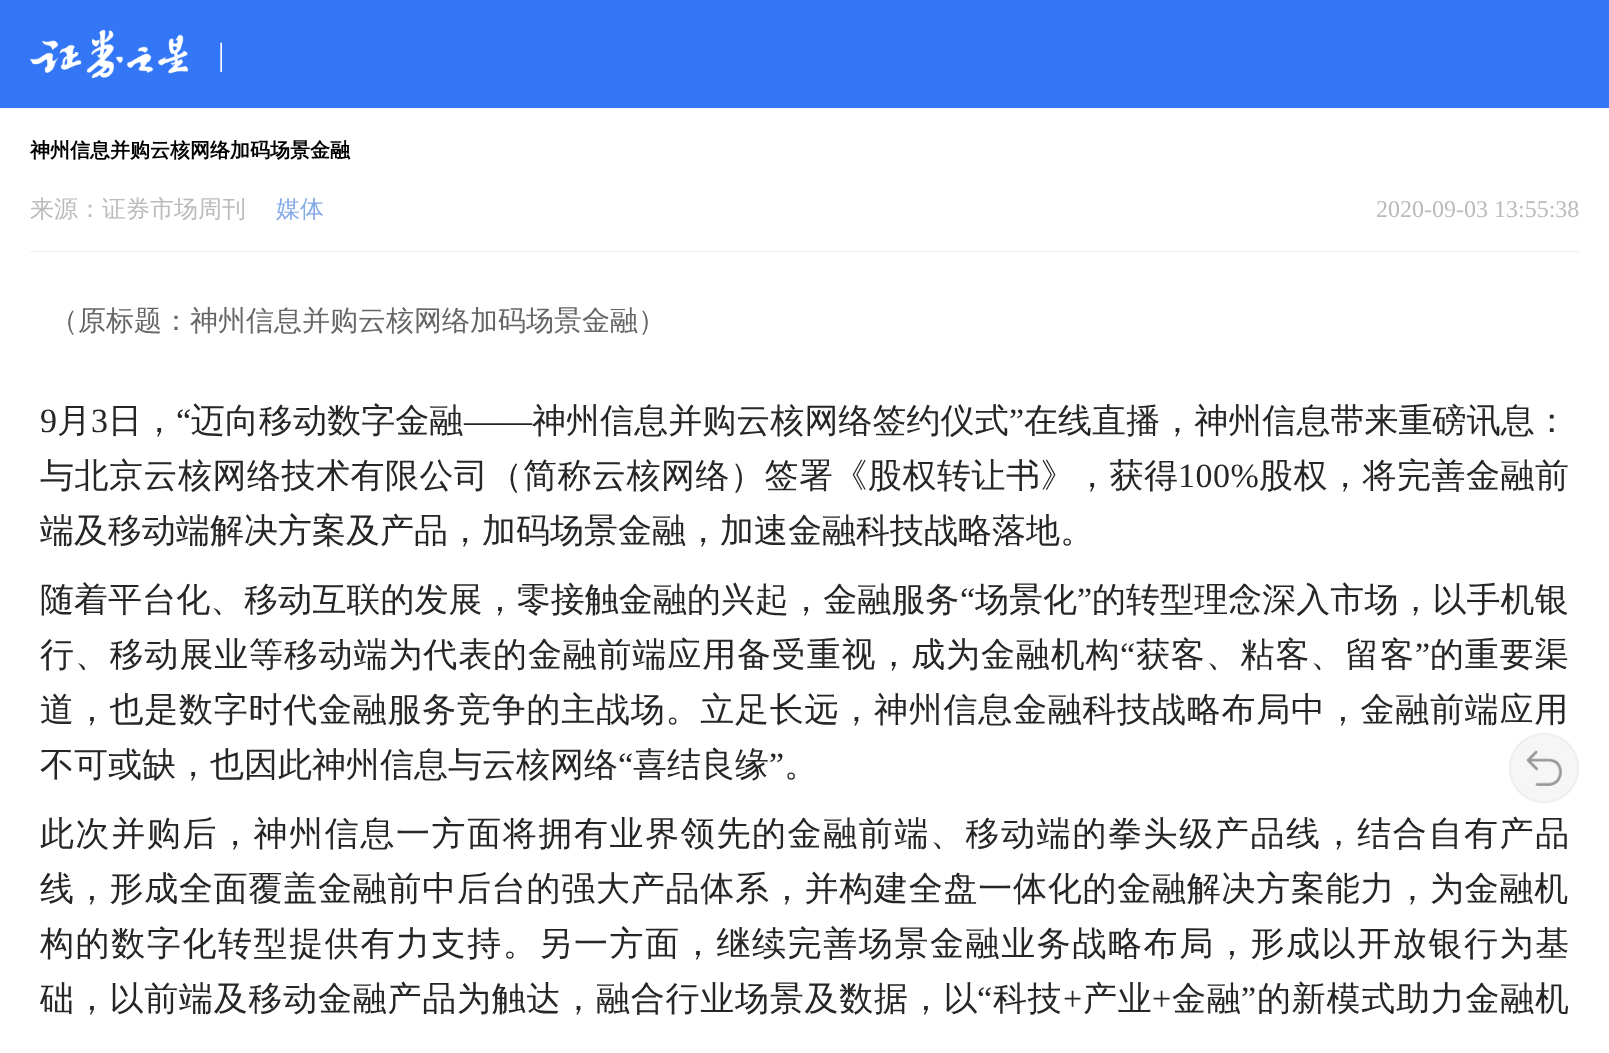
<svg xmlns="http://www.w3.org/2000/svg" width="1609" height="1053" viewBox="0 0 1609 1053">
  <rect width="100%" height="100%" fill="#ffffff"/>
  <rect x="0" y="0" width="1609" height="108" fill="#3477f6"/>
  <image x="30" y="30" width="158" height="48" href="img1.png"/>
  <text x="218" y="65" font-family="Liberation Serif" font-size="32" fill="#ffffff">|</text>
  <text x="30" y="157" font-family="WenQuanYi Zen Hei" font-size="20" font-weight="bold" fill="#000000">神州信息并购云核网络加码场景金融</text>
  <rect x="30" y="251" width="1549" height="1" fill="#f0f0f0"/>
  <text x="30" y="217" font-family="WenQuanYi Zen Hei" font-size="24" font-weight="500" fill="#bbbbbb">来源：证券市场周刊</text>
  <text x="276" y="217" font-family="WenQuanYi Zen Hei" font-size="24" font-weight="500" fill="#84aae7">媒体</text>
  <text x="1376" y="217" font-family="Liberation Serif" font-size="24" fill="#bbbbbb">2020-09-03 13:55:38</text>
  <text x="50" y="330" font-family="WenQuanYi Zen Hei" font-size="28" font-weight="500" fill="#666666">（原标题：神州信息并购云核网络加码场景金融）</text>
  <text x="40" y="432" font-family="Liberation Serif" font-size="34" letter-spacing="0.05" fill="#262626">9</text>
  <text x="57" y="432" font-family="WenQuanYi Zen Hei" font-size="34" font-weight="500" letter-spacing="0.05" fill="#262626">月</text>
  <text x="91" y="432" font-family="Liberation Serif" font-size="34" letter-spacing="0.05" fill="#262626">3</text>
  <text x="108" y="432" font-family="WenQuanYi Zen Hei" font-size="34" font-weight="500" letter-spacing="0.05" fill="#262626">日，</text>
  <text x="176" y="432" font-family="Liberation Serif" font-size="34" letter-spacing="0.05" fill="#262626">“</text>
  <text x="191" y="432" font-family="WenQuanYi Zen Hei" font-size="34" font-weight="500" letter-spacing="0.05" fill="#262626">迈向移动数字金融</text>
  <text x="464" y="432" font-family="Liberation Serif" font-size="34" letter-spacing="0.05" fill="#262626">——</text>
  <text x="532" y="432" font-family="WenQuanYi Zen Hei" font-size="34" font-weight="500" letter-spacing="0.05" fill="#262626">神州信息并购云核网络签约仪式</text>
  <text x="1009" y="432" font-family="Liberation Serif" font-size="34" letter-spacing="0.05" fill="#262626">”</text>
  <text x="1024" y="432" font-family="WenQuanYi Zen Hei" font-size="34" font-weight="500" letter-spacing="0.05" fill="#262626">在线直播，神州信息带来重磅讯息：</text>
  <text x="40" y="487" font-family="WenQuanYi Zen Hei" font-size="34" font-weight="500" letter-spacing="0.5" fill="#262626">与北京云核网络技术有限公司（简称云核网络）签署《股权转让书》，获得</text>
  <text x="1178" y="487" font-family="Liberation Serif" font-size="34" letter-spacing="0.5" fill="#262626">100%</text>
  <text x="1259" y="487" font-family="WenQuanYi Zen Hei" font-size="34" font-weight="500" letter-spacing="0.5" fill="#262626">股权，将完善金融前</text>
  <text x="40" y="542" font-family="WenQuanYi Zen Hei" font-size="34" font-weight="500" fill="#262626">端及移动端解决方案及产品，加码场景金融，加速金融科技战略落地。</text>
  <text x="40" y="611" font-family="WenQuanYi Zen Hei" font-size="34" font-weight="500" letter-spacing="0.05" fill="#262626">随着平台化、移动互联的发展，零接触金融的兴起，金融服务</text>
  <text x="960" y="611" font-family="Liberation Serif" font-size="34" letter-spacing="0.05" fill="#262626">“</text>
  <text x="975" y="611" font-family="WenQuanYi Zen Hei" font-size="34" font-weight="500" letter-spacing="0.05" fill="#262626">场景化</text>
  <text x="1077" y="611" font-family="Liberation Serif" font-size="34" letter-spacing="0.05" fill="#262626">”</text>
  <text x="1092" y="611" font-family="WenQuanYi Zen Hei" font-size="34" font-weight="500" letter-spacing="0.05" fill="#262626">的转型理念深入市场，以手机银</text>
  <text x="40" y="666" font-family="WenQuanYi Zen Hei" font-size="34" font-weight="500" letter-spacing="0.85" fill="#262626">行、移动展业等移动端为代表的金融前端应用备受重视，成为金融机构</text>
  <text x="1120" y="666" font-family="Liberation Serif" font-size="34" letter-spacing="0.85" fill="#262626">“</text>
  <text x="1136" y="666" font-family="WenQuanYi Zen Hei" font-size="34" font-weight="500" letter-spacing="0.85" fill="#262626">获客、粘客、留客</text>
  <text x="1415" y="666" font-family="Liberation Serif" font-size="34" letter-spacing="0.85" fill="#262626">”</text>
  <text x="1430" y="666" font-family="WenQuanYi Zen Hei" font-size="34" font-weight="500" letter-spacing="0.85" fill="#262626">的重要渠</text>
  <text x="40" y="721" font-family="WenQuanYi Zen Hei" font-size="34" font-weight="500" letter-spacing="0.75" fill="#262626">道，也是数字时代金融服务竞争的主战场。立足长远，神州信息金融科技战略布局中，金融前端应用</text>
  <text x="40" y="776" font-family="WenQuanYi Zen Hei" font-size="34" font-weight="500" fill="#262626">不可或缺，也因此神州信息与云核网络</text>
  <text x="618" y="776" font-family="Liberation Serif" font-size="34" fill="#262626">“</text>
  <text x="633" y="776" font-family="WenQuanYi Zen Hei" font-size="34" font-weight="500" fill="#262626">喜结良缘</text>
  <text x="769" y="776" font-family="Liberation Serif" font-size="34" fill="#262626">”</text>
  <text x="784" y="776" font-family="WenQuanYi Zen Hei" font-size="34" font-weight="500" fill="#262626">。</text>
  <text x="40" y="845" font-family="WenQuanYi Zen Hei" font-size="34" font-weight="500" letter-spacing="1.6" fill="#262626">此次并购后，神州信息一方面将拥有业界领先的金融前端、移动端的拳头级产品线，结合自有产品</text>
  <text x="40" y="900" font-family="WenQuanYi Zen Hei" font-size="34" font-weight="500" letter-spacing="0.75" fill="#262626">线，形成全面覆盖金融前中后台的强大产品体系，并构建全盘一体化的金融解决方案能力，为金融机</text>
  <text x="40" y="955" font-family="WenQuanYi Zen Hei" font-size="34" font-weight="500" letter-spacing="1.6" fill="#262626">构的数字化转型提供有力支持。另一方面，继续完善场景金融业务战略布局，形成以开放银行为基</text>
  <text x="40" y="1010" font-family="WenQuanYi Zen Hei" font-size="34" font-weight="500" letter-spacing="0.75" fill="#262626">础，以前端及移动金融产品为触达，融合行业场景及数据，以</text>
  <text x="977" y="1010" font-family="Liberation Serif" font-size="34" letter-spacing="0.75" fill="#262626">“</text>
  <text x="993" y="1010" font-family="WenQuanYi Zen Hei" font-size="34" font-weight="500" letter-spacing="0.75" fill="#262626">科技</text>
  <text x="1063" y="1010" font-family="Liberation Serif" font-size="34" letter-spacing="0.75" fill="#262626">+</text>
  <text x="1083" y="1010" font-family="WenQuanYi Zen Hei" font-size="34" font-weight="500" letter-spacing="0.75" fill="#262626">产业</text>
  <text x="1152" y="1010" font-family="Liberation Serif" font-size="34" letter-spacing="0.75" fill="#262626">+</text>
  <text x="1172" y="1010" font-family="WenQuanYi Zen Hei" font-size="34" font-weight="500" letter-spacing="0.75" fill="#262626">金融</text>
  <text x="1241" y="1010" font-family="Liberation Serif" font-size="34" letter-spacing="0.75" fill="#262626">”</text>
  <text x="1257" y="1010" font-family="WenQuanYi Zen Hei" font-size="34" font-weight="500" letter-spacing="0.75" fill="#262626">的新模式助力金融机</text>
  <circle cx="1544" cy="768" r="35" fill="#f6f6f6"/>
  <image x="1509" y="733" width="70" height="70" href="img2.png"/>
</svg>
